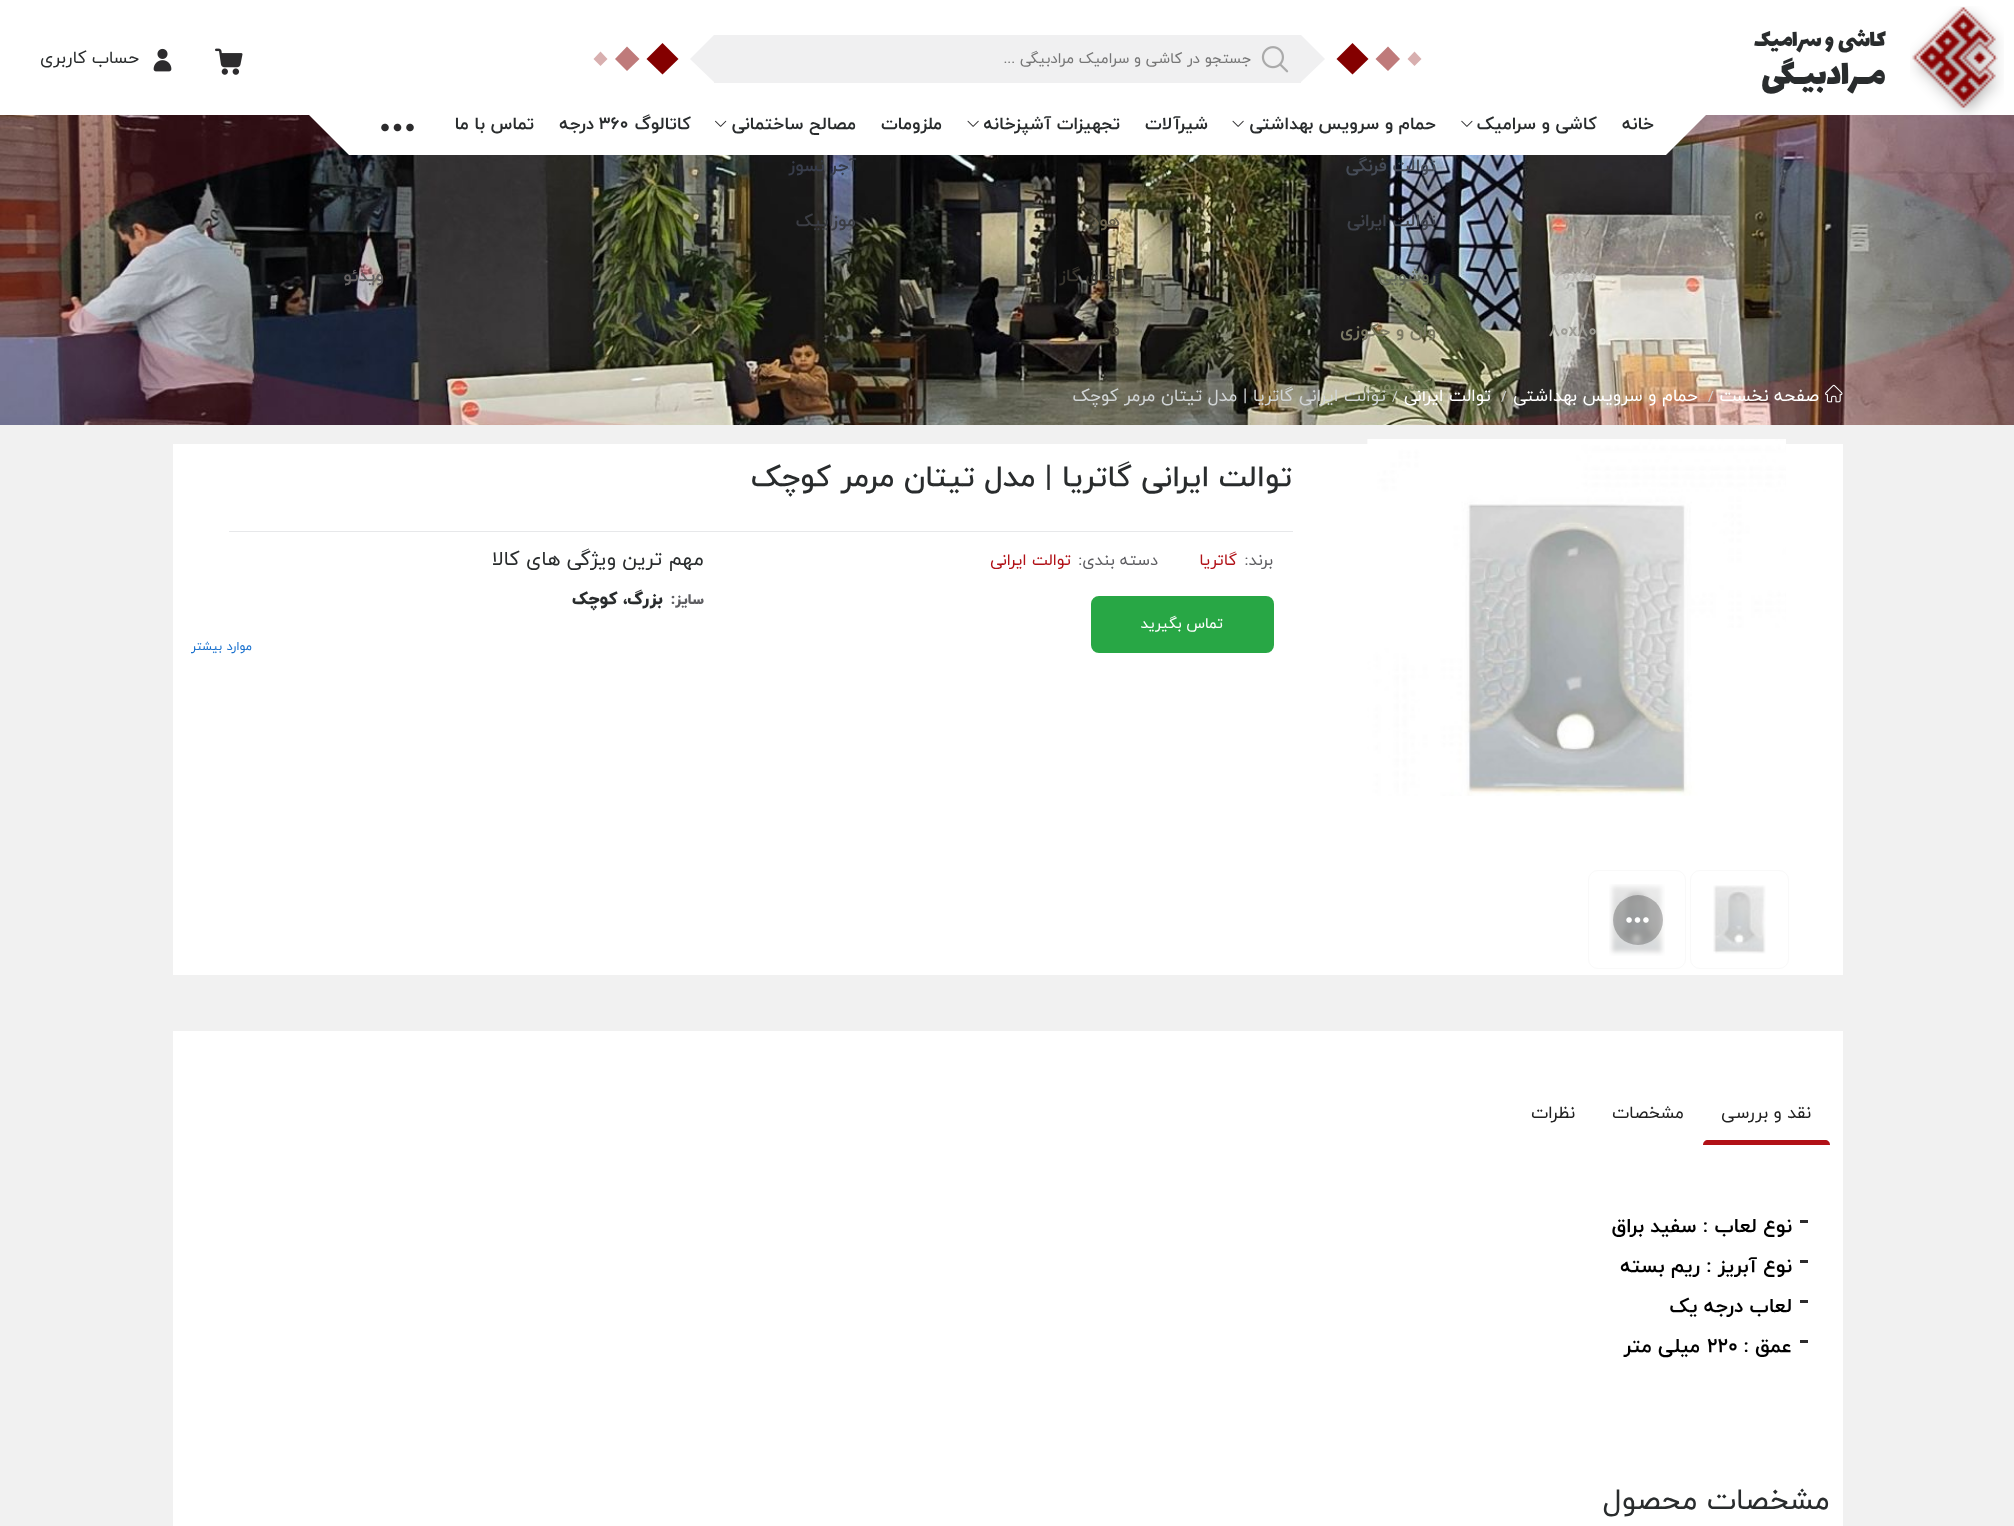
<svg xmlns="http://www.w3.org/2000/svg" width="2014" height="1526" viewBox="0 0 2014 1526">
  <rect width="100%" height="100%" fill="#f1f1f1"/>
  <rect x="0" y="0" width="2014" height="115" fill="#ffffff"/>
  <image x="1910" y="6" width="94" height="109" href="img1.png"/>
  <text x="1886" y="46" font-family="Lalezar" font-size="25" direction="rtl" fill="#292c2d">کاشی و سرامیک</text>
  <text x="1886" y="84" font-family="Lalezar" font-size="37.5" direction="rtl" fill="#292c2d">مـرادبیـگی</text>
  <rect x="714" y="35" width="587" height="48" fill="#f0f0f1"/>
  <path d="M1301 82V35L1325 59Z" fill="#f0f0f1"/>
  <path d="M714 35V82L690 59Z" fill="#f0f0f1"/>
  <path d="M1414.5 51.5L1421.5 59L1414.5 66L1407.5 59Z" fill="#d8afaf"/>
  <path d="M1388 46.5L1400 59L1388 71L1375.5 59Z" fill="#bf7a7a"/>
  <path d="M1352.5 43L1368.5 59L1352.5 74.5L1336.5 59Z" fill="#840000"/>
  <path d="M600.5 51.5L607.5 59L600.5 66L593.5 59Z" fill="#d8afaf"/>
  <path d="M627 46.5L639.5 59L627 71L615 59Z" fill="#bf7a7a"/>
  <path d="M662.5 43L678.5 59L662.5 74.5L646.5 59Z" fill="#840000"/>
  <image x="1261" y="46" width="28" height="27" href="img2.png"/>
  <text x="1251" y="63" font-family="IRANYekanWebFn" font-size="15" direction="rtl" fill="#757575">جستجو در کاشی و سرامیک مرادبیگی ...</text>
  <image x="215" y="48" width="28" height="27" href="img3.png"/>
  <image x="153" y="48" width="19" height="24" href="img4.png"/>
  <text x="139" y="63" font-family="IRANYekanWebFn" font-size="17.5" direction="rtl" fill="#292c2d">حساب کاربری</text>
  <image x="0" y="115" width="2014" height="310" href="img9.png"/>
  <rect x="349" y="115" width="1317" height="40" fill="#ffffff"/>
  <path d="M1666 100H1721L1666 155Z" fill="#ffffff"/>
  <text x="1654" y="129" font-family="IRANYekanWebFn" font-size="17.5" font-weight="bold" direction="rtl" fill="#292c2d">خانه</text>
  <text x="1597" y="129" font-family="IRANYekanWebFn" font-size="17.5" font-weight="bold" direction="rtl" fill="#292c2d">کاشی و سرامیک</text>
  <image x="1461" y="120" width="12" height="7" href="img5.png"/>
  <text x="1553" y="281" font-family="IRANYekanWebFn" font-size="17.5" font-weight="bold" fill="#bcbab5">60x60</text>
  <text x="1549" y="336" font-family="IRANYekanWebFn" font-size="17.5" font-weight="bold" fill="#9d9c95">80x80</text>
  <text x="1436" y="129" font-family="IRANYekanWebFn" font-size="17.5" font-weight="bold" direction="rtl" fill="#292c2d">حمام و سرویس بهداشتی</text>
  <image x="1232" y="120" width="12" height="7" href="img6.png"/>
  <text x="1436" y="171" font-family="IRANYekanWebFn" font-size="17.5" font-weight="bold" direction="rtl" fill="#464c57">توالت فرنگی</text>
  <text x="1436" y="226" font-family="IRANYekanWebFn" font-size="17.5" font-weight="bold" direction="rtl" fill="#40444d">توالت ایرانی</text>
  <text x="1436" y="281" font-family="IRANYekanWebFn" font-size="17.5" font-weight="bold" direction="rtl" fill="#616657">روشویی</text>
  <text x="1436" y="336" font-family="IRANYekanWebFn" font-size="17.5" font-weight="bold" direction="rtl" fill="#7a7863">وان و جکوزی</text>
  <text x="1491" y="401" font-family="IRANYekanWebFn" font-size="17.5" direction="rtl" fill="#ffffff">توالت ایرانی</text>
  <text x="1392" y="401" font-family="IRANYekanWebFn" font-size="14" fill="#d1d5d6">/</text>
  <text x="1386" y="401" font-family="IRANYekanWebFn" font-size="17.5" direction="rtl" fill="#d1d5d6">توالت ایرانی گاتریا | مدل تیتان مرمر کوچک</text>
  <text x="1436" y="391" font-family="IRANYekanWebFn" font-size="17.5" font-weight="bold" direction="rtl" fill="#7c8360">اکسسوری</text>
  <text x="1208" y="129" font-family="IRANYekanWebFn" font-size="17.5" font-weight="bold" direction="rtl" fill="#292c2d">شیرآلات</text>
  <text x="1120" y="129" font-family="IRANYekanWebFn" font-size="17.5" font-weight="bold" direction="rtl" fill="#292c2d">تجهیزات آشپزخانه</text>
  <image x="967" y="120" width="12" height="7" href="img6.png"/>
  <text x="1120" y="226" font-family="IRANYekanWebFn" font-size="17.5" font-weight="bold" direction="rtl" fill="#69614d">هود</text>
  <text x="1120" y="281" font-family="IRANYekanWebFn" font-size="17.5" font-weight="bold" direction="rtl" fill="#38352e">اجاق گاز</text>
  <text x="1120" y="336" font-family="IRANYekanWebFn" font-size="17.5" font-weight="bold" direction="rtl" fill="#4c473a">فر</text>
  <text x="942" y="129" font-family="IRANYekanWebFn" font-size="17.5" font-weight="bold" direction="rtl" fill="#292c2d">ملزومات</text>
  <text x="856" y="129" font-family="IRANYekanWebFn" font-size="17.5" font-weight="bold" direction="rtl" fill="#292c2d">مصالح ساختمانی</text>
  <image x="715" y="120" width="12" height="7" href="img7.png"/>
  <text x="856" y="171" font-family="IRANYekanWebFn" font-size="17.5" font-weight="bold" direction="rtl" fill="#373c4a">آجر نسوز</text>
  <text x="856" y="226" font-family="IRANYekanWebFn" font-size="17.5" font-weight="bold" direction="rtl" fill="#3b3d44">موزاییک</text>
  <text x="691" y="129" font-family="IRANYekanWebFn" font-size="17.5" font-weight="bold" direction="rtl" fill="#292c2d">کاتالوگ</text>
  <text x="599" y="129" font-family="IRANYekanWebFn" font-size="17.5" font-weight="bold" fill="#292c2d">360</text>
  <text x="594" y="129" font-family="IRANYekanWebFn" font-size="17.5" font-weight="bold" direction="rtl" fill="#292c2d">درجه</text>
  <text x="534" y="129" font-family="IRANYekanWebFn" font-size="17.5" font-weight="bold" direction="rtl" fill="#292c2d">تماس با ما</text>
  <image x="381" y="123" width="33" height="9" href="img8.png"/>
  <text x="384" y="281" font-family="IRANYekanWebFn" font-size="17.5" font-weight="bold" direction="rtl" fill="#646061">ویدئو</text>
  <path d="M294 100H349V155Z" fill="#ffffff"/>
  <image x="1825" y="384" width="18" height="19" href="img10.png"/>
  <text x="1819" y="401" font-family="IRANYekanWebFn" font-size="17.5" direction="rtl" fill="#ffffff">صفحه نخست</text>
  <text x="1708" y="401" font-family="IRANYekanWebFn" font-size="14" fill="#d1d5d6">/</text>
  <text x="1698" y="401" font-family="IRANYekanWebFn" font-size="17.5" direction="rtl" fill="#ffffff">حمام و سرویس بهداشتی</text>
  <text x="1501" y="401" font-family="IRANYekanWebFn" font-size="14" fill="#d1d5d6">/</text>
  <rect x="173" y="444" width="1670" height="531" fill="#ffffff"/>
  <image x="1367" y="439" width="419" height="357" href="img11.png"/>
  <rect x="1690.5" y="870.5" width="98" height="98" rx="9.5" fill="none" stroke="#f9f9f9"/>
  <image x="1713" y="885" width="53" height="69" href="img12.png"/>
  <rect x="1588.5" y="870.5" width="97" height="98" rx="9.5" fill="none" stroke="#f9f9f9"/>
  <image x="1609" y="884" width="56" height="72" href="img13.png"/>
  <circle cx="1638" cy="920" r="25" fill="#000000" fill-opacity="0.25"/>
  <image x="1626" y="917" width="23" height="6" href="img14.png"/>
  <text x="1292" y="486" font-family="IRANYekanWebFn" font-size="30" font-weight="500" direction="rtl" fill="#292c2d">توالت ایرانی گاتریا | مدل تیتان مرمر کوچک</text>
  <rect x="229" y="531" width="1064" height="1" fill="#e7e8ea"/>
  <text x="1273" y="565" font-family="IRANYekanWebFn" font-size="16.25" direction="rtl" fill="#5e5e62">برند:</text>
  <text x="1237" y="565" font-family="IRANYekanWebFn" font-size="16.25" direction="rtl" fill="#b11117">گاتریا</text>
  <text x="1158" y="565" font-family="IRANYekanWebFn" font-size="16.25" direction="rtl" fill="#5e5e62">دسته بندی:</text>
  <text x="1071" y="565" font-family="IRANYekanWebFn" font-size="16.25" direction="rtl" fill="#b11117">توالت ایرانی</text>
  <rect x="1091" y="596" width="183" height="57" rx="8" fill="#28a745"/>
  <text x="1223" y="628" font-family="IRANYekanWebFn" font-size="15" direction="rtl" fill="#ffffff">تماس بگیرید</text>
  <text x="704" y="565" font-family="IRANYekanWebFn" font-size="20" direction="rtl" fill="#292c2d">مهم ترین ویژگی های کالا</text>
  <text x="704" y="604" font-family="IRANYekanWebFn" font-size="15" font-weight="800" direction="rtl" fill="#5e5e62">سایز:</text>
  <text x="663" y="604" font-family="IRANYekanWebFn" font-size="17.5" font-weight="800" direction="rtl" fill="#292c2d">بزرگ، کوچک</text>
  <text x="252" y="650" font-family="IRANYekanWebFn" font-size="12.5" direction="rtl" fill="#1870ce">موارد</text>
  <text x="222" y="650" font-family="IRANYekanWebFn" font-size="12.5" direction="rtl" fill="#1870ce">بیشتر</text>
  <rect x="173" y="1031" width="1670" height="495" fill="#ffffff"/>
  <text x="1811" y="1118" font-family="IRANYekanWebFn" font-size="17.5" direction="rtl" fill="#222222">نقد و بررسی</text>
  <path d="M1708 1140H1825C1828 1140 1830 1142 1830 1145H1703C1703 1142 1705 1140 1708 1140Z" fill="#b11117"/>
  <text x="1684" y="1118" font-family="IRANYekanWebFn" font-size="17.5" direction="rtl" fill="#222222">مشخصات</text>
  <text x="1575" y="1118" font-family="IRANYekanWebFn" font-size="17.5" direction="rtl" fill="#222222">نظرات</text>
  <rect x="1800" y="1220" width="8" height="3" fill="#2c2b2d"/>
  <text x="1792" y="1232" font-family="IRANYekanWebFn" font-size="20" font-weight="bold" direction="rtl" fill="#000000">نوع لعاب : سفید براق</text>
  <rect x="1800" y="1260" width="8" height="3" fill="#2c2b2d"/>
  <text x="1792" y="1272" font-family="IRANYekanWebFn" font-size="20" font-weight="bold" direction="rtl" fill="#000000">نوع آبریز : ریم بسته</text>
  <rect x="1800" y="1300" width="8" height="3" fill="#2c2b2d"/>
  <text x="1792" y="1312" font-family="IRANYekanWebFn" font-size="20" font-weight="bold" direction="rtl" fill="#000000">لعاب درجه یک</text>
  <rect x="1800" y="1340" width="8" height="3" fill="#2c2b2d"/>
  <text x="1792" y="1352" font-family="IRANYekanWebFn" font-size="20" font-weight="bold" direction="rtl" fill="#000000">عمق :</text>
  <text x="1707" y="1352" font-family="IRANYekanWebFn" font-size="20" font-weight="bold" fill="#000000">220</text>
  <text x="1700" y="1352" font-family="IRANYekanWebFn" font-size="20" font-weight="bold" direction="rtl" fill="#000000">میلی متر</text>
  <text x="1830" y="1509" font-family="IRANYekanWebFn" font-size="30" direction="rtl" fill="#292c2d">مشخصات محصول</text>
</svg>
